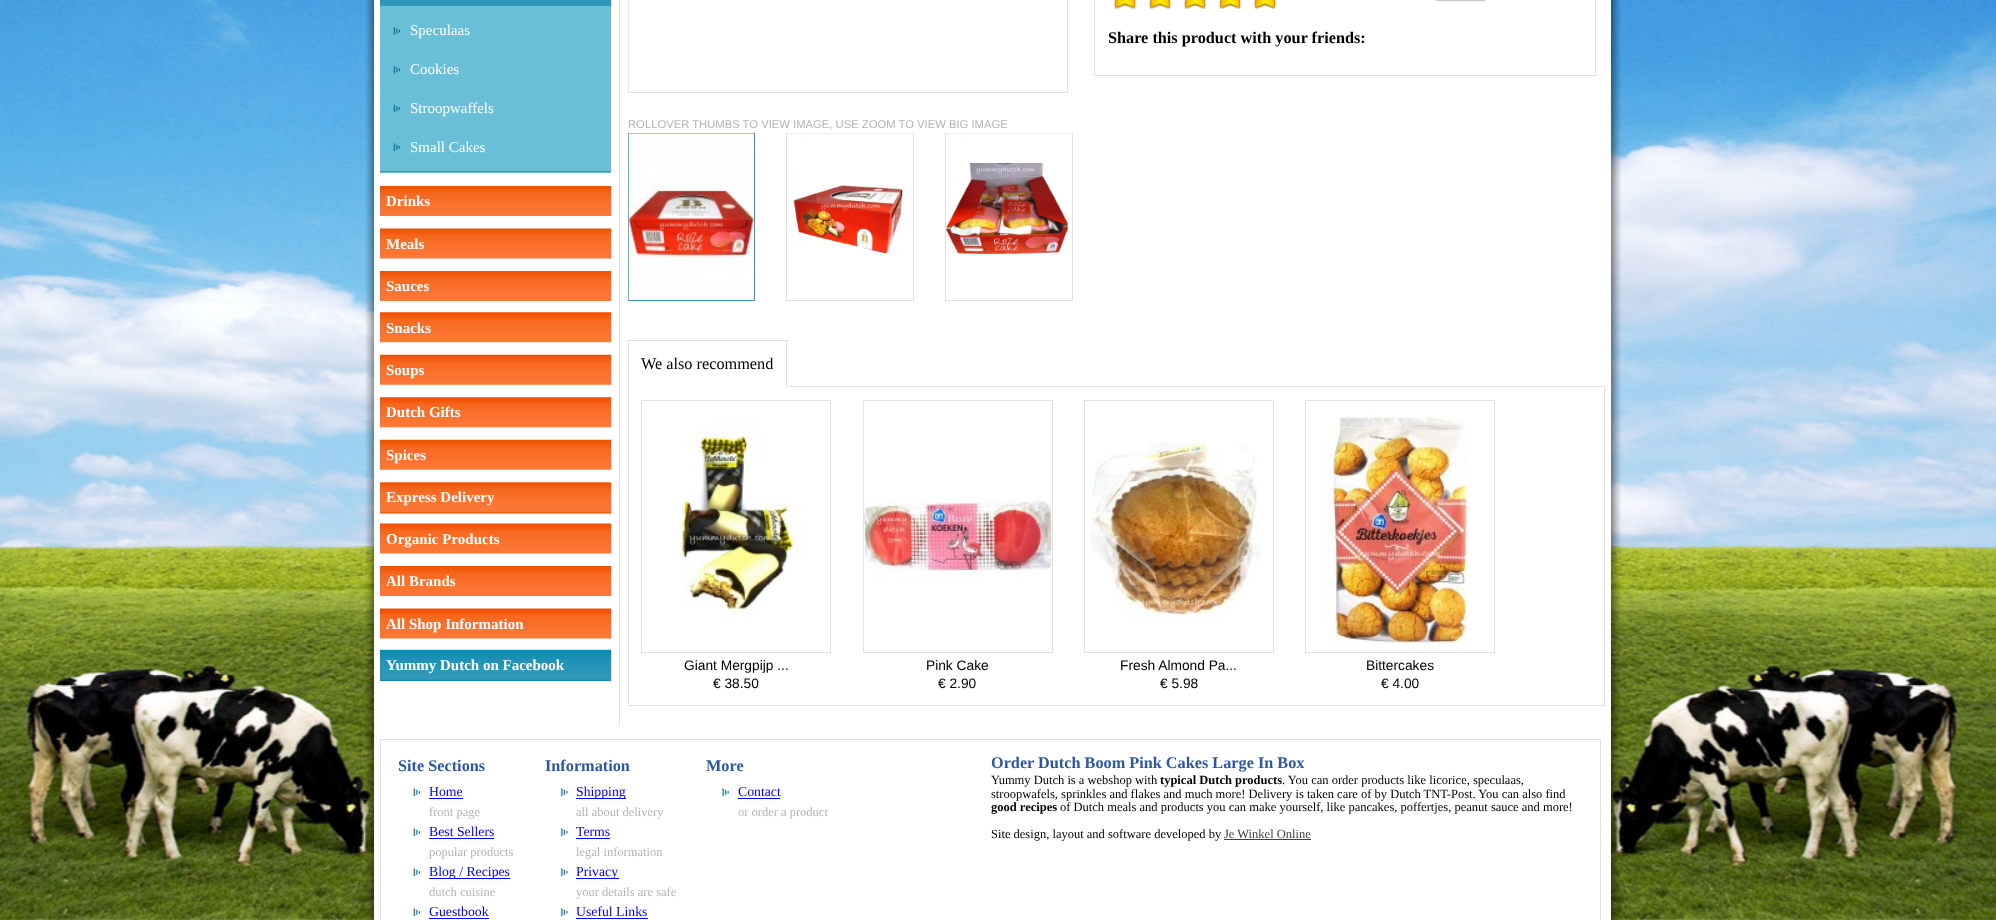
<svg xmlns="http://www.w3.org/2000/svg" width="1996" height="920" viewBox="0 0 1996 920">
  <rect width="100%" height="100%" fill="#ffffff"/>
  <image x="0" y="0" width="1996" height="920" href="img1.png"/>
  <image x="365" y="0" width="1256" height="920" href="img2.png"/>
  <rect x="374" y="0" width="1237" height="920" fill="#ffffff"/>
  <image x="380" y="0" width="232" height="8" href="img3.png"/>
  <rect x="380" y="6" width="231" height="167" fill="#69bed8"/>
  <rect x="380" y="171" width="231" height="1" fill="#2e97ba"/>
  <image x="393" y="27" width="7" height="8" href="img4.png"/>
  <text x="410" y="35" font-family="Liberation Serif" font-size="15" fill="#ffffff">Speculaas</text>
  <image x="393" y="66" width="7" height="8" href="img5.png"/>
  <text x="410" y="74" font-family="Liberation Serif" font-size="15" fill="#ffffff">Cookies</text>
  <image x="393" y="104" width="7" height="9" href="img6.png"/>
  <text x="410" y="113" font-family="Liberation Serif" font-size="15" fill="#ffffff">Stroopwaffels</text>
  <image x="393" y="143" width="7" height="8" href="img7.png"/>
  <text x="410" y="152" font-family="Liberation Serif" font-size="15" fill="#ffffff">Small Cakes</text>
  <image x="380" y="186" width="232" height="30" href="img8.png"/>
  <text x="386" y="206" font-family="Liberation Serif" font-size="15" font-weight="bold" fill="#ffffff">Drinks</text>
  <image x="380" y="228" width="232" height="31" href="img9.png"/>
  <text x="386" y="249" font-family="Liberation Serif" font-size="15" font-weight="bold" fill="#ffffff">Meals</text>
  <image x="380" y="271" width="232" height="30" href="img8.png"/>
  <text x="386" y="291" font-family="Liberation Serif" font-size="15" font-weight="bold" fill="#ffffff">Sauces</text>
  <image x="380" y="312" width="232" height="31" href="img10.png"/>
  <text x="386" y="333" font-family="Liberation Serif" font-size="15" font-weight="bold" fill="#ffffff">Snacks</text>
  <image x="380" y="354" width="232" height="31" href="img11.png"/>
  <text x="386" y="375" font-family="Liberation Serif" font-size="15" font-weight="bold" fill="#ffffff">Soups</text>
  <image x="380" y="397" width="232" height="31" href="img10.png"/>
  <text x="386" y="417" font-family="Liberation Serif" font-size="15" font-weight="bold" fill="#ffffff">Dutch Gifts</text>
  <image x="380" y="439" width="232" height="31" href="img11.png"/>
  <text x="386" y="460" font-family="Liberation Serif" font-size="15" font-weight="bold" fill="#ffffff">Spices</text>
  <image x="380" y="482" width="232" height="32" href="img12.png"/>
  <text x="386" y="502" font-family="Liberation Serif" font-size="15" font-weight="bold" fill="#ffffff">Express Delivery</text>
  <image x="380" y="523" width="232" height="31" href="img9.png"/>
  <text x="386" y="544" font-family="Liberation Serif" font-size="15" font-weight="bold" fill="#ffffff">Organic Products</text>
  <image x="380" y="566" width="232" height="30" href="img8.png"/>
  <text x="386" y="586" font-family="Liberation Serif" font-size="15" font-weight="bold" fill="#ffffff">All Brands</text>
  <image x="380" y="608" width="232" height="31" href="img9.png"/>
  <text x="386" y="629" font-family="Liberation Serif" font-size="15" font-weight="bold" fill="#ffffff">All Shop Information</text>
  <image x="380" y="649" width="232" height="32" href="img13.png"/>
  <text x="386" y="670" font-family="Liberation Serif" font-size="15" font-weight="bold" fill="#ffffff">Yummy Dutch on Facebook</text>
  <rect x="619" y="0" width="1" height="726" fill="#e3e3e3"/>
  <rect x="1094.5" y="-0.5" width="501" height="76" fill="none" stroke="#e1e1e1"/>
  <image x="1113" y="0" width="24" height="9" href="img14.png"/>
  <image x="1148" y="0" width="24" height="9" href="img14.png"/>
  <image x="1183" y="0" width="24" height="9" href="img15.png"/>
  <image x="1218" y="0" width="24" height="9" href="img15.png"/>
  <image x="1253" y="0" width="24" height="9" href="img16.png"/>
  <image x="1435" y="0" width="52" height="2" href="img17.png"/>
  <text x="1108" y="43" font-family="Liberation Serif" font-size="16.25" font-weight="bold" fill="#000000">Share this product with your friends:</text>
  <rect x="628.5" y="-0.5" width="439" height="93" fill="none" stroke="#e1e1e1"/>
  <image x="628" y="0" width="1" height="90" href="img18.png"/>
  <text x="628" y="128" font-family="Liberation Sans" font-size="11.25" fill="#b3b3b3">ROLLOVER THUMBS TO VIEW IMAGE, USE ZOOM TO VIEW BIG IMAGE</text>
  <rect x="628.5" y="133.5" width="126" height="167" fill="none" stroke="#3299bb"/>
  <image x="628" y="133" width="126" height="167" href="img19.png"/>
  <rect x="786.5" y="133.5" width="127" height="167" fill="none" stroke="#e1e1e1"/>
  <image x="787" y="133" width="126" height="121" href="img20.png"/>
  <rect x="945.5" y="133.5" width="127" height="167" fill="none" stroke="#e1e1e1"/>
  <image x="946" y="133" width="125" height="123" href="img21.png"/>
  <rect x="628.5" y="386.5" width="976" height="319" fill="none" stroke="#e1e1e1"/>
  <rect x="628" y="340" width="160" height="1" fill="#e1e1e1"/>
  <rect x="786" y="340" width="1" height="48" fill="#e1e1e1"/>
  <rect x="628" y="386" width="160" height="1" fill="#ffffff"/>
  <rect x="628" y="340" width="1" height="48" fill="#e1e1e1"/>
  <text x="641" y="369" font-family="Liberation Serif" font-size="16.25" fill="#000000">We also recommend</text>
  <rect x="641.5" y="400.5" width="189" height="252" fill="none" stroke="#e1e1e1"/>
  <image x="681" y="421" width="122" height="200" href="img22.png"/>
  <text x="684" y="670" font-family="Liberation Sans" font-size="13.75" fill="#000000">Giant Mergpijp ...</text>
  <text x="713" y="688" font-family="Liberation Sans" font-size="13.75" fill="#000000">€ 38.50</text>
  <rect x="863.5" y="400.5" width="189" height="252" fill="none" stroke="#e1e1e1"/>
  <image x="863" y="401" width="189" height="250" href="img23.png"/>
  <text x="926" y="670" font-family="Liberation Sans" font-size="13.75" fill="#000000">Pink Cake</text>
  <text x="938" y="688" font-family="Liberation Sans" font-size="13.75" fill="#000000">€ 2.90</text>
  <rect x="1084.5" y="400.5" width="189" height="252" fill="none" stroke="#e1e1e1"/>
  <image x="1086" y="441" width="178" height="180" href="img24.png"/>
  <text x="1120" y="670" font-family="Liberation Sans" font-size="13.75" fill="#000000">Fresh Almond Pa...</text>
  <text x="1160" y="688" font-family="Liberation Sans" font-size="13.75" fill="#000000">€ 5.98</text>
  <rect x="1305.5" y="400.5" width="189" height="252" fill="none" stroke="#e1e1e1"/>
  <image x="1326" y="415" width="142" height="233" href="img25.png"/>
  <text x="1366" y="670" font-family="Liberation Sans" font-size="13.75" fill="#000000">Bittercakes</text>
  <text x="1381" y="688" font-family="Liberation Sans" font-size="13.75" fill="#000000">€ 4.00</text>
  <rect x="380.5" y="739.5" width="1220" height="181" fill="none" stroke="#e1e1e1"/>
  <text x="398" y="771" font-family="Liberation Serif" font-size="16.25" font-weight="bold" fill="#2e579f">Site Sections</text>
  <text x="545" y="771" font-family="Liberation Serif" font-size="16.25" font-weight="bold" fill="#2e579f">Information</text>
  <text x="706" y="771" font-family="Liberation Serif" font-size="16.25" font-weight="bold" fill="#2e579f">More</text>
  <image x="413" y="788" width="7" height="8" href="img26.png"/>
  <text x="429" y="796" font-family="Liberation Serif" font-size="13.75" fill="#0000ff">Home</text>
  <rect x="429" y="798" width="34" height="1" fill="#0000ff"/>
  <text x="429" y="816" font-family="Liberation Serif" font-size="12.5" fill="#b3b3b3">front page</text>
  <image x="413" y="828" width="7" height="8" href="img26.png"/>
  <text x="429" y="836" font-family="Liberation Serif" font-size="13.75" fill="#0000ff">Best Sellers</text>
  <rect x="429" y="838" width="65" height="1" fill="#0000ff"/>
  <text x="429" y="856" font-family="Liberation Serif" font-size="12.5" fill="#b3b3b3">popular products</text>
  <image x="413" y="868" width="7" height="8" href="img26.png"/>
  <rect x="429" y="878" width="81" height="1" fill="#0000ff"/>
  <text x="429" y="876" font-family="Liberation Serif" font-size="13.75" fill="#0000ff">Blog / Recipes</text>
  <text x="429" y="896" font-family="Liberation Serif" font-size="12.5" fill="#b3b3b3">dutch cuisine</text>
  <image x="413" y="908" width="7" height="8" href="img26.png"/>
  <text x="429" y="916" font-family="Liberation Serif" font-size="13.75" fill="#0000ff">Guestbook</text>
  <rect x="429" y="918" width="60" height="1" fill="#0000ff"/>
  <image x="561" y="788" width="7" height="8" href="img27.png"/>
  <rect x="576" y="798" width="50" height="1" fill="#0000ff"/>
  <text x="576" y="796" font-family="Liberation Serif" font-size="13.75" fill="#0000ff">Shipping</text>
  <text x="576" y="816" font-family="Liberation Serif" font-size="12.5" fill="#b3b3b3">all about delivery</text>
  <image x="561" y="828" width="7" height="8" href="img27.png"/>
  <text x="576" y="836" font-family="Liberation Serif" font-size="13.75" fill="#0000ff">Terms</text>
  <rect x="576" y="838" width="34" height="1" fill="#0000ff"/>
  <text x="576" y="856" font-family="Liberation Serif" font-size="12.5" fill="#b3b3b3">legal information</text>
  <image x="561" y="868" width="7" height="8" href="img27.png"/>
  <rect x="576" y="878" width="43" height="1" fill="#0000ff"/>
  <text x="576" y="876" font-family="Liberation Serif" font-size="13.75" fill="#0000ff">Privacy</text>
  <text x="576" y="896" font-family="Liberation Serif" font-size="12.5" fill="#b3b3b3">your details are safe</text>
  <image x="561" y="908" width="7" height="8" href="img27.png"/>
  <text x="576" y="916" font-family="Liberation Serif" font-size="13.75" fill="#0000ff">Useful Links</text>
  <rect x="576" y="918" width="72" height="1" fill="#0000ff"/>
  <image x="722" y="788" width="7" height="8" href="img28.png"/>
  <text x="738" y="796" font-family="Liberation Serif" font-size="13.75" fill="#0000ff">Contact</text>
  <rect x="738" y="798" width="42" height="1" fill="#0000ff"/>
  <text x="738" y="816" font-family="Liberation Serif" font-size="12.5" fill="#b3b3b3">or order a product</text>
  <text x="991" y="768" font-family="Liberation Serif" font-size="16.25" font-weight="bold" fill="#2e579f">Order Dutch Boom Pink Cakes Large In Box</text>
  <text x="991" y="784" font-family="Liberation Serif" font-size="12.5" fill="#000000">Yummy Dutch is a webshop with</text>
  <text x="1160" y="784" font-family="Liberation Serif" font-size="12.5" font-weight="bold" fill="#000000">typical Dutch products</text>
  <text x="1282" y="784" font-family="Liberation Serif" font-size="12.5" fill="#000000">. You can order products like licorice, speculaas,</text>
  <text x="991" y="798" font-family="Liberation Serif" font-size="12.5" fill="#000000">stroopwafels, sprinkles and flakes and much more! Delivery is taken care of by Dutch TNT-Post. You can also find</text>
  <text x="991" y="811" font-family="Liberation Serif" font-size="12.5" font-weight="bold" fill="#000000">good recipes</text>
  <text x="1060" y="811" font-family="Liberation Serif" font-size="12.5" fill="#000000">of Dutch meals and products you can make yourself, like pancakes, poffertjes, peanut sauce and more!</text>
  <text x="991" y="838" font-family="Liberation Serif" font-size="12.5" fill="#000000">Site design, layout and software developed by</text>
  <text x="1224" y="838" font-family="Liberation Serif" font-size="12.5" fill="#3f3f3f">Je Winkel Online</text>
  <rect x="1224" y="839" width="87" height="1" fill="#3f3f3f"/>
</svg>
